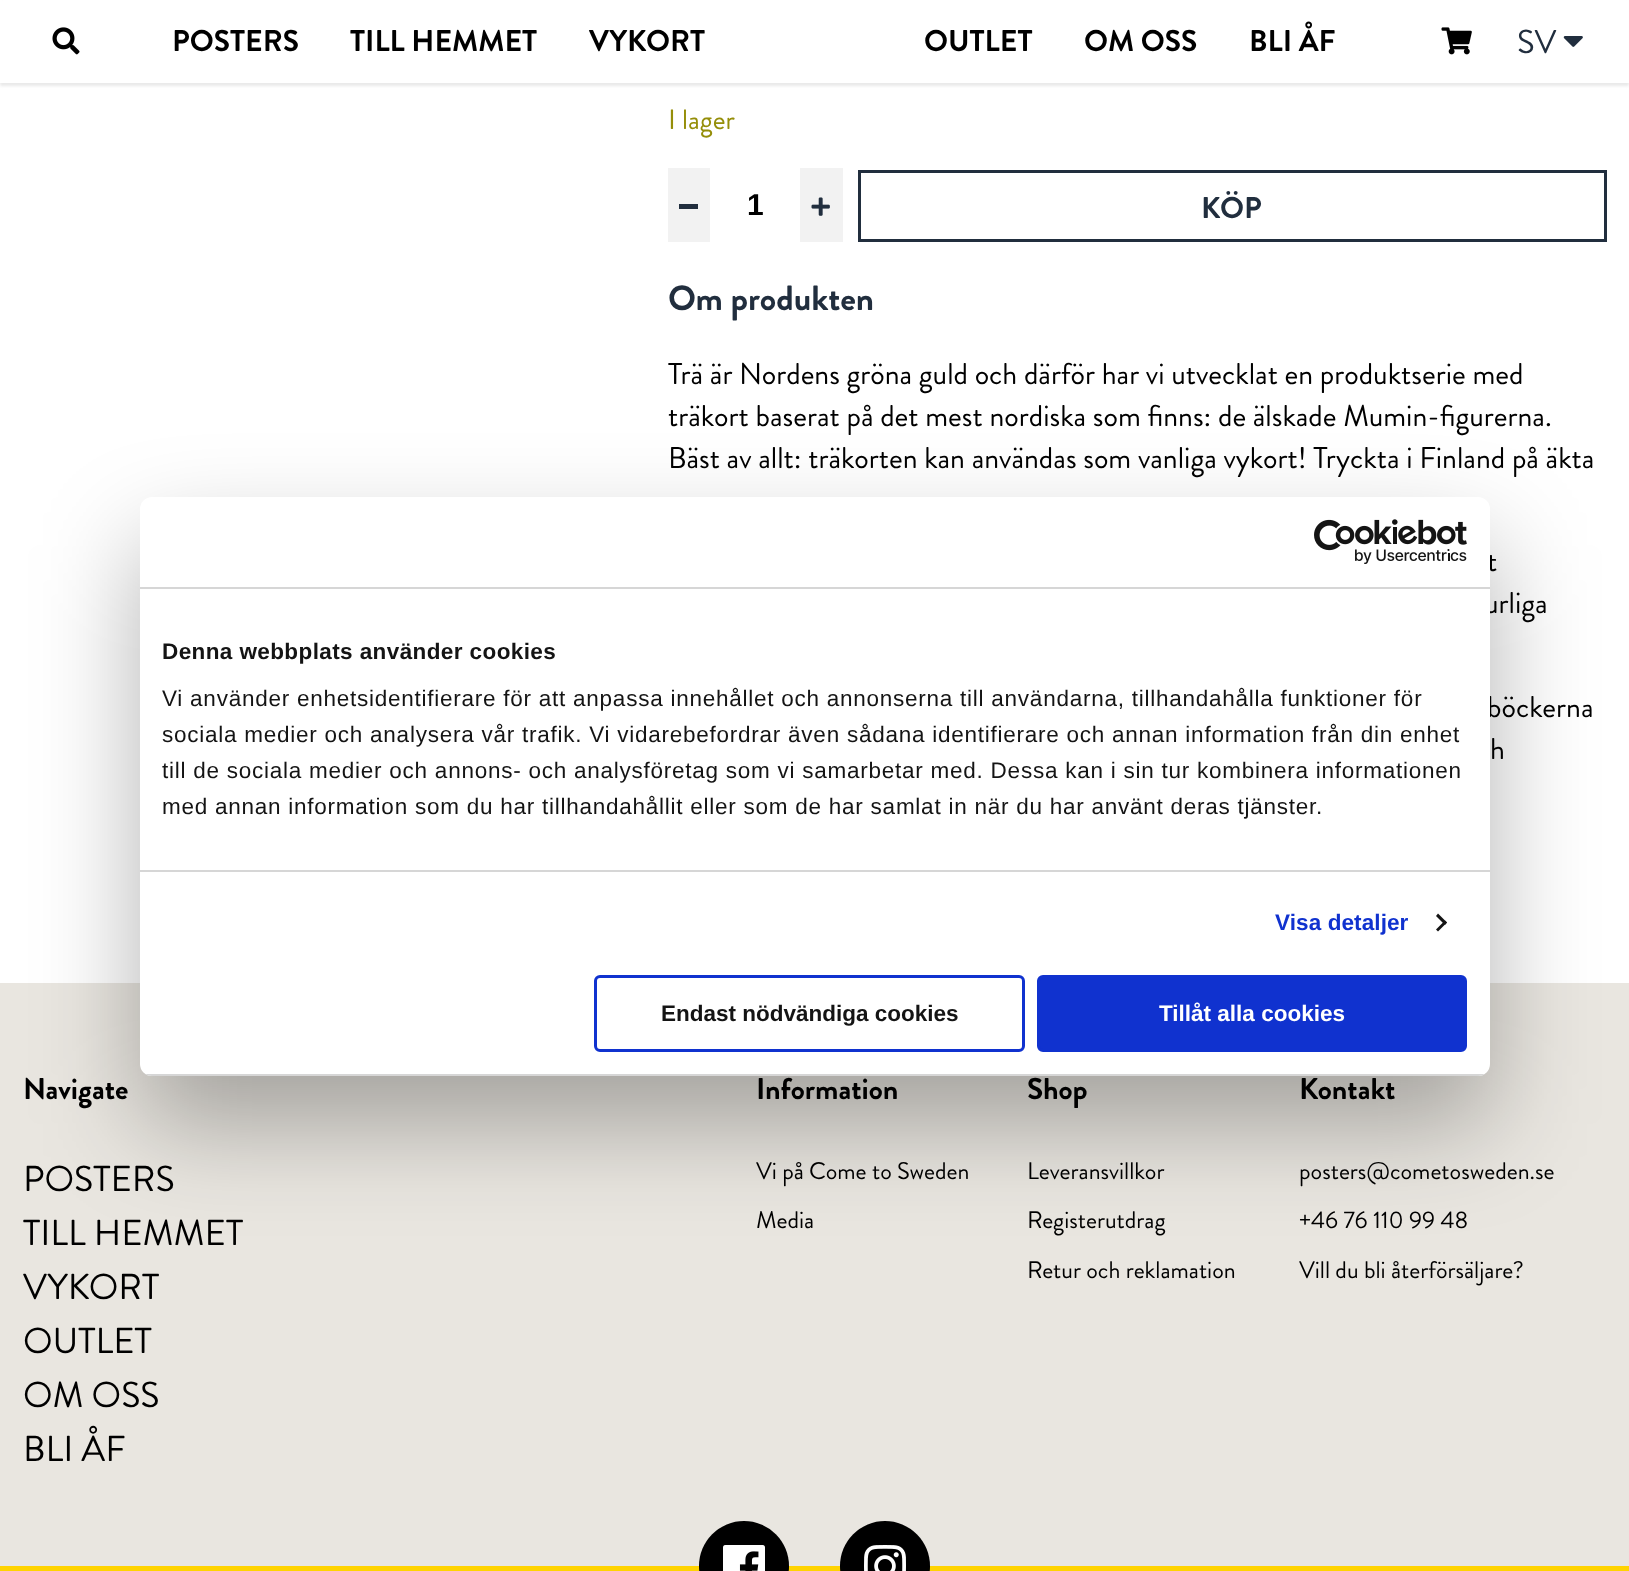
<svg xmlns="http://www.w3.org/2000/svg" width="1629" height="1571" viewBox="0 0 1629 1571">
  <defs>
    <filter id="blur1" x="-50%" y="-200%" width="200%" height="500%"><feGaussianBlur stdDeviation="1.5"/></filter>
    <filter id="blur2" x="-50%" y="-200%" width="200%" height="500%"><feGaussianBlur stdDeviation="51"/></filter>
    <clipPath id="clip1"><rect x="140" y="497" width="1350" height="579" rx="12"/></clipPath>
  </defs>
  <rect width="100%" height="100%" fill="#ffffff"/>
  <rect x="0" y="3" width="1629" height="83" fill="#e9e9e9" filter="url(#blur1)"/>
  <rect x="0" y="1" width="1629" height="82" fill="#ffffff"/>
  <image x="52" y="27" width="28" height="28" href="img1.png"/>
  <text x="172" y="51" font-family="Brandon Grotesque" font-size="30" font-weight="bold" fill="#000000">POSTERS</text>
  <text x="350" y="51" font-family="Brandon Grotesque" font-size="30" font-weight="bold" fill="#000000">TILL HEMMET</text>
  <text x="589" y="51" font-family="Brandon Grotesque" font-size="30" font-weight="bold" fill="#000000">VYKORT</text>
  <text x="924" y="51" font-family="Brandon Grotesque" font-size="30" font-weight="bold" fill="#000000">OUTLET</text>
  <text x="1084" y="51" font-family="Brandon Grotesque" font-size="30" font-weight="bold" fill="#000000">OM OSS</text>
  <text x="1249" y="51" font-family="Brandon Grotesque" font-size="30" font-weight="bold" fill="#000000">BLI ÅF</text>
  <image x="1441" y="27" width="31" height="28" href="img2.png"/>
  <text x="1517" y="53" font-family="Brandon Grotesque" font-size="33" fill="#212e3e">SV</text>
  <image x="1563" y="36" width="20" height="11" href="img3.png"/>
  <text x="668" y="129" font-family="Brandon Grotesque" font-size="28" fill="#958e09">I lager</text>
  <rect x="668" y="168" width="42" height="74" fill="#f2f2f2"/>
  <rect x="679" y="204" width="19" height="5" fill="#212e3e"/>
  <text x="747" y="215" font-family="Liberation Sans" font-size="30" font-weight="bold" fill="#000000">1</text>
  <rect x="800" y="168" width="43" height="74" fill="#f2f2f2"/>
  <image x="811" y="197" width="19" height="19" href="img4.png"/>
  <rect x="859.5" y="171.5" width="746" height="69" fill="none" stroke="#212e3e" stroke-width="3"/>
  <text x="1201" y="218" font-family="Brandon Grotesque" font-size="30" font-weight="bold" fill="#212e3e">KÖP</text>
  <text x="668" y="310" font-family="Brandon Grotesque" font-size="35" font-weight="bold" fill="#212e3e">Om produkten</text>
  <text x="668" y="384" font-family="Brandon Grotesque" font-size="30" fill="#000000">Trä är Nordens gröna guld och därför har vi utvecklat en produktserie med</text>
  <text x="668" y="426" font-family="Brandon Grotesque" font-size="30" fill="#000000">träkort baserat på det mest nordiska som finns: de älskade Mumin-figurerna.</text>
  <text x="668" y="468" font-family="Brandon Grotesque" font-size="30" fill="#000000">Bäst av allt: träkorten kan användas som vanliga vykort! Tryckta i Finland på äkta</text>
  <text x="1487" y="571" font-family="Brandon Grotesque" font-size="30" fill="#000000">t</text>
  <text x="1484" y="613" font-family="Brandon Grotesque" font-size="30" fill="#000000">urliga</text>
  <text x="1487" y="717" font-family="Brandon Grotesque" font-size="30" fill="#000000">böckerna</text>
  <text x="1490" y="759" font-family="Brandon Grotesque" font-size="30" fill="#000000">h</text>
  <rect x="0" y="983" width="1629" height="583" fill="#e9e6e0"/>
  <text x="23" y="1099" font-family="Brandon Grotesque" font-size="30" font-weight="bold" fill="#000000">Navigate</text>
  <text x="23" y="1191" font-family="Brandon Grotesque" font-size="36" fill="#000000">POSTERS</text>
  <text x="23" y="1245" font-family="Brandon Grotesque" font-size="36" fill="#000000">TILL HEMMET</text>
  <text x="23" y="1299" font-family="Brandon Grotesque" font-size="36" fill="#000000">VYKORT</text>
  <text x="23" y="1353" font-family="Brandon Grotesque" font-size="36" fill="#000000">OUTLET</text>
  <text x="23" y="1407" font-family="Brandon Grotesque" font-size="36" fill="#000000">OM OSS</text>
  <text x="23" y="1461" font-family="Brandon Grotesque" font-size="36" fill="#000000">BLI ÅF</text>
  <text x="756" y="1099" font-family="Brandon Grotesque" font-size="30" font-weight="bold" fill="#000000">Information</text>
  <text x="756" y="1179" font-family="Brandon Grotesque" font-size="24" fill="#000000">Vi på Come to Sweden</text>
  <text x="756" y="1228" font-family="Brandon Grotesque" font-size="24" fill="#000000">Media</text>
  <text x="1027" y="1099" font-family="Brandon Grotesque" font-size="30" font-weight="bold" fill="#000000">Shop</text>
  <text x="1027" y="1179" font-family="Brandon Grotesque" font-size="24" fill="#000000">Leveransvillkor</text>
  <text x="1027" y="1228" font-family="Brandon Grotesque" font-size="24" fill="#000000">Registerutdrag</text>
  <text x="1027" y="1278" font-family="Brandon Grotesque" font-size="24" fill="#000000">Retur och reklamation</text>
  <text x="1299" y="1099" font-family="Brandon Grotesque" font-size="30" font-weight="bold" fill="#000000">Kontakt</text>
  <text x="1299" y="1179" font-family="Brandon Grotesque" font-size="24" fill="#000000">posters@cometosweden.se</text>
  <text x="1299" y="1228" font-family="Brandon Grotesque" font-size="24" fill="#000000">+46 76 110 99 48</text>
  <text x="1299" y="1278" font-family="Brandon Grotesque" font-size="24" fill="#000000">Vill du bli återförsäljare?</text>
  <rect x="0" y="1566" width="1629" height="5" fill="#ffd300"/>
  <circle cx="744" cy="1566" r="45" fill="#000000"/>
  <image x="723" y="1545" width="42" height="26" href="img5.png"/>
  <circle cx="885" cy="1566" r="45" fill="#000000"/>
  <image x="864" y="1545" width="42" height="26" href="img6.png"/>
  <rect x="140" y="545" width="1350" height="579" rx="12" fill="#000000" fill-opacity="0.3" filter="url(#blur2)"/>
  <rect x="140" y="497" width="1350" height="579" rx="12" fill="#ffffff"/>
  <rect x="140" y="587" width="1350" height="2" fill="#d6d6d6"/>
  <image x="1314" y="519" width="153" height="45" href="img7.png"/>
  <rect x="140" y="870" width="1350" height="2" fill="#d6d6d6"/>
  <text x="162" y="659" font-family="Liberation Sans" font-size="22.5" font-weight="bold" letter-spacing="0.4" fill="#141414">Denna webbplats använder cookies</text>
  <text x="162" y="706" font-family="Liberation Sans" font-size="22.5" letter-spacing="0.75" fill="#141414">Vi använder enhetsidentifierare för att anpassa innehållet och annonserna till användarna, tillhandahålla funktioner för</text>
  <text x="162" y="742" font-family="Liberation Sans" font-size="22.5" letter-spacing="0.75" fill="#141414">sociala medier och analysera vår trafik. Vi vidarebefordrar även sådana identifierare och annan information från din enhet</text>
  <text x="162" y="778" font-family="Liberation Sans" font-size="22.5" letter-spacing="0.75" fill="#141414">till de sociala medier och annons- och analysföretag som vi samarbetar med. Dessa kan i sin tur kombinera informationen</text>
  <text x="162" y="814" font-family="Liberation Sans" font-size="22.5" letter-spacing="0.75" fill="#141414">med annan information som du har tillhandahållit eller som de har samlat in när du har använt deras tjänster.</text>
  <text x="1275" y="930" font-family="Liberation Sans" font-size="22.5" font-weight="bold" letter-spacing="0.1" fill="#1032cf">Visa detaljer</text>
  <path d="M1438 913.5L1447 922.5L1445 925L1436 916Z" fill="#141414"/>
  <path d="M1445 920.5L1447 922.5L1438 931.5L1436 929.5Z" fill="#141414"/>
  <g clip-path="url(#clip1)">
    <rect x="140" y="1074" width="1350" height="2" fill="#d6d6d6"/>
  </g>
  <rect x="595.5" y="976.5" width="428" height="74" rx="4.5" fill="none" stroke="#1032cf" stroke-width="3"/>
  <text x="661" y="1021" font-family="Liberation Sans" font-size="22.5" font-weight="bold" fill="#141414">Endast nödvändiga cookies</text>
  <rect x="1038.5" y="976.5" width="427" height="74" rx="4.5" fill="#1032cf" stroke="#1032cf" stroke-width="3"/>
  <text x="1159" y="1021" font-family="Liberation Sans" font-size="22.5" font-weight="bold" fill="#ffffff">Tillåt alla cookies</text>
</svg>
